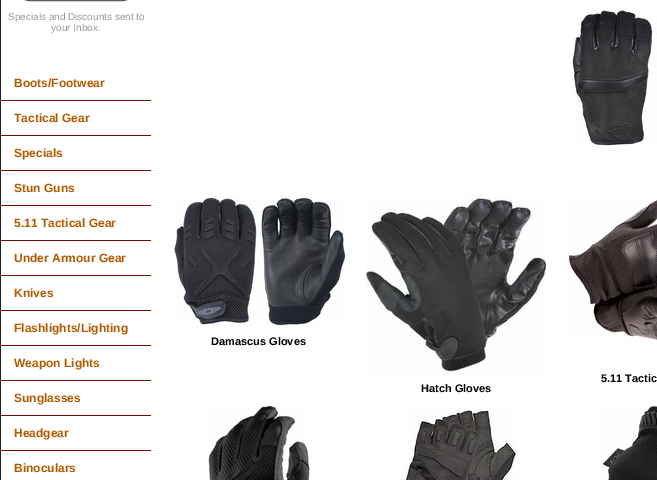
%!PS-Adobe-3.0
%%BoundingBox: 0 0 657 480
%%LanguageLevel: 3
%%Pages: 1
%%EndComments
%%BeginProlog
/S { stroke } bind def
/fn { [ exch dup neg 0 0 3 -1 roll 0 0 ] selectfont } def
/tx { moveto show } def
/bx { rectfill } def
/rr { 5 dict begin { /r /h /w /y /x } { exch def } forall
  x r add y moveto x w add y 2 copy h add r arct x w add y h add x 1 index r arct
  x y h add x y r arct x y 2 copy exch w add exch r arct closepath end } def
/im { 5 dict begin { /h /w /y /x /name } { exch def } forall
  gsave x y translate w h scale
  w h 8 [w 0 0 h 0 0] name (r) file false 3 colorimage grestore end } def
%%EndProlog
%%BeginSetup
<< /PageSize [657 480] >> setpagedevice
%%EndSetup
%%Page: 1 1
0 480 translate 1 -1 scale
4 setmiterlimit
0.125 setgray
0 0 657 480 bx
1 setgray
1 0 656 480 bx
0.357 setgray
19.5 -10.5 113 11 9.5 rr S
/LiberationSans-Regular 10 fn
0.6 setgray
(Specials and Discounts sent to) 8 20 tx
(your Inbox.) 51 31 tx
0.459 0.055 0 setrgbcolor
1 100 150 1 bx
/LiberationSans-Bold 12 fn
0.702 0.353 0 setrgbcolor
(Boots/Footwear) 14 87 tx
0.459 0.055 0 setrgbcolor
1 135 150 1 bx
0.702 0.353 0 setrgbcolor
(Tactical Gear) 14 122 tx
0.459 0.055 0 setrgbcolor
1 170 150 1 bx
0.702 0.353 0 setrgbcolor
(Specials) 14 157 tx
0.459 0.055 0 setrgbcolor
1 205 150 1 bx
0.702 0.353 0 setrgbcolor
(Stun Guns) 14 192 tx
0.459 0.055 0 setrgbcolor
1 240 150 1 bx
0.702 0.353 0 setrgbcolor
(5.11 Tactical Gear) 14 227 tx
0.459 0.055 0 setrgbcolor
1 275 150 1 bx
0.702 0.353 0 setrgbcolor
(Under Armour Gear) 14 262 tx
0.459 0.055 0 setrgbcolor
1 310 150 1 bx
0.702 0.353 0 setrgbcolor
(Knives) 14 297 tx
0.459 0.055 0 setrgbcolor
1 345 150 1 bx
0.702 0.353 0 setrgbcolor
(Flashlights/Lighting) 14 332 tx
0.459 0.055 0 setrgbcolor
1 380 150 1 bx
0.702 0.353 0 setrgbcolor
(Weapon Lights) 14 367 tx
0.459 0.055 0 setrgbcolor
1 415 150 1 bx
0.702 0.353 0 setrgbcolor
(Sunglasses) 14 402 tx
0.459 0.055 0 setrgbcolor
1 450 150 1 bx
0.702 0.353 0 setrgbcolor
(Headgear) 14 437 tx
(Binoculars) 14 472 tx
(image0.raw) 572 10 85 137 im
(image1.raw) 174 196 173 130 im
/LiberationSans-Bold 11 fn
0 setgray
(Damascus Gloves) 211 345 tx
(image2.raw) 568 198 89 144 im
(5.11 Tactic) 601 382 tx
(image3.raw) 366 195 180 180 im
(Hatch Gloves) 421 392 tx
(image4.raw) 208 406 102 74 im
(image5.raw) 404 408 114 72 im
(image6.raw) 601 406 56 74 im
showpage
%%EOF
